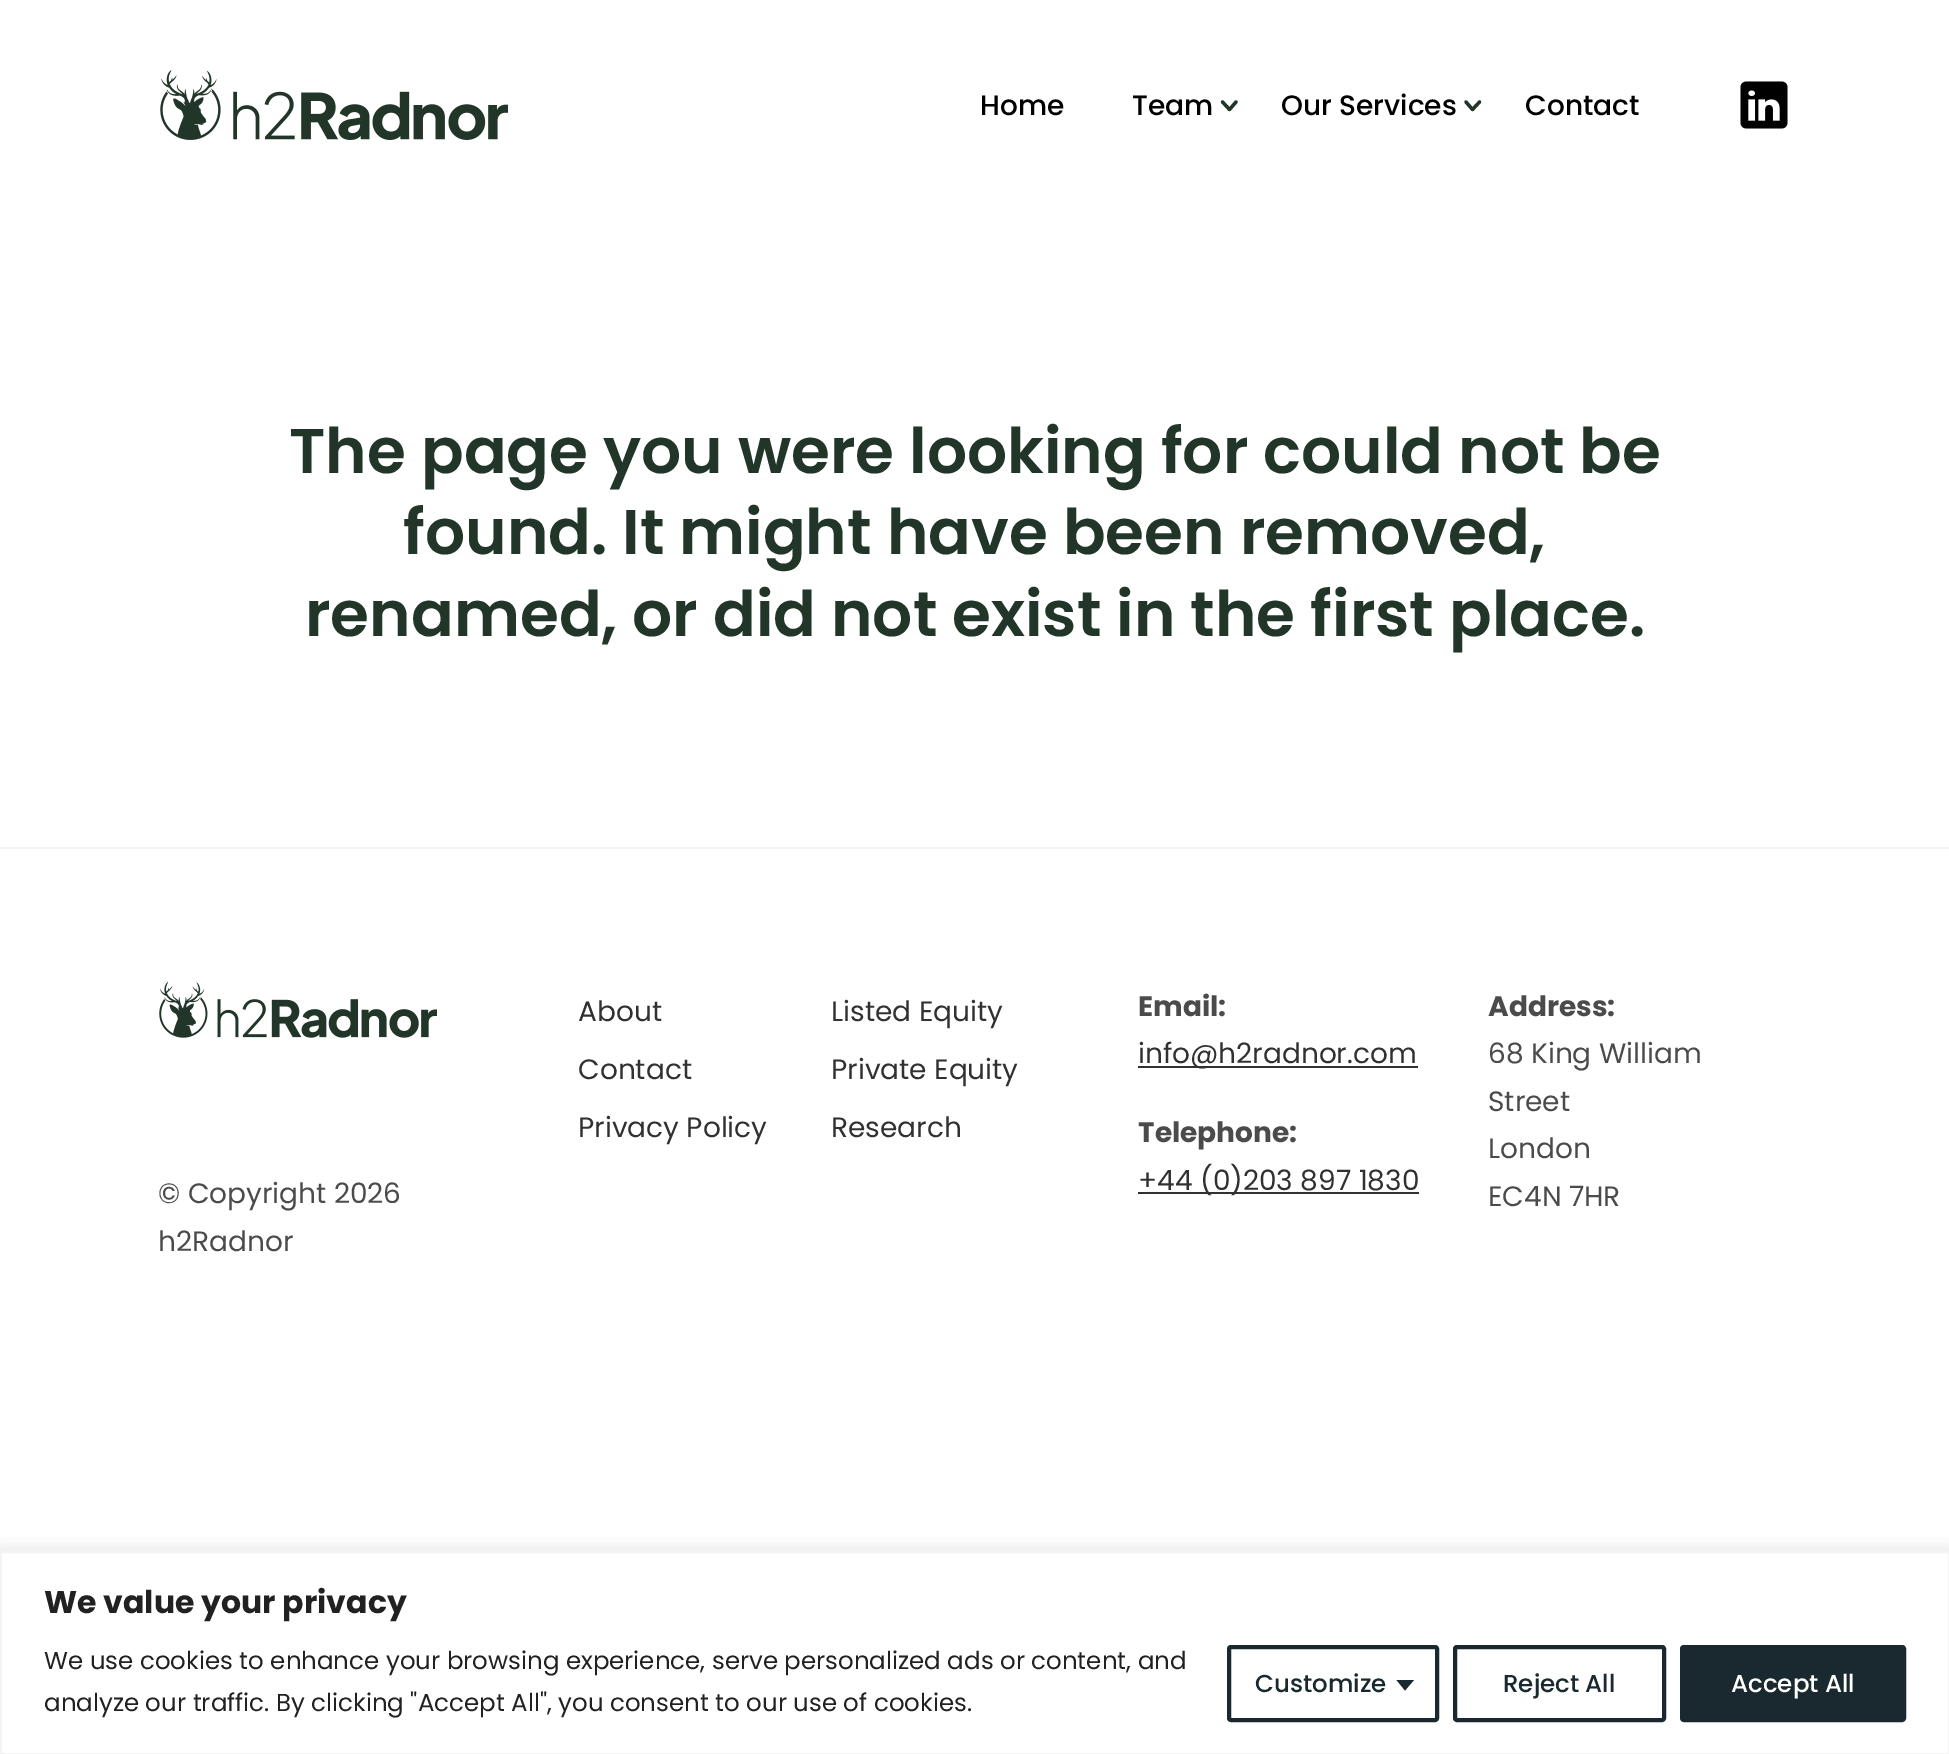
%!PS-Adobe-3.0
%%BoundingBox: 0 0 1949 1754
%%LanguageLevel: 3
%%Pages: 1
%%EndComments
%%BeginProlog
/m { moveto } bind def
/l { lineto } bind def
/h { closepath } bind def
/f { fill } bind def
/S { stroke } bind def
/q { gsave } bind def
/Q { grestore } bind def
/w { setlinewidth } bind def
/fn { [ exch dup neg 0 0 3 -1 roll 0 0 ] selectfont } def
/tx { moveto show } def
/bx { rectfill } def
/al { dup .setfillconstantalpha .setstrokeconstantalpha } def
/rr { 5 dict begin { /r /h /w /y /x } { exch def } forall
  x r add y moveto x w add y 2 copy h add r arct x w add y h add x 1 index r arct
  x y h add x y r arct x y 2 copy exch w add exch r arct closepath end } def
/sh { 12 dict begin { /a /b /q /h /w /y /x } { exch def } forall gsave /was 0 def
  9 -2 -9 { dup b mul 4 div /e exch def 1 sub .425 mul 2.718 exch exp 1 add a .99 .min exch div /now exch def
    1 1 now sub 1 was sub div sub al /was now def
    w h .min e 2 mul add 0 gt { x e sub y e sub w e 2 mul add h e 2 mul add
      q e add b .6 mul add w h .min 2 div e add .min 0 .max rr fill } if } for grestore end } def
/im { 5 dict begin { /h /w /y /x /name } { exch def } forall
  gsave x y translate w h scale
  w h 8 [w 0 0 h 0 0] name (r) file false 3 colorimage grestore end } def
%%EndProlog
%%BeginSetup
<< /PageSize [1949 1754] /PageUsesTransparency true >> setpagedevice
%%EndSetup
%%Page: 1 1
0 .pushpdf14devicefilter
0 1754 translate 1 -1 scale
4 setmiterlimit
1 setgray
0 0 1949 1754 bx
(image0.raw) 160 70 348 70 im
/Poppins-Medium 28 fn
0 setgray
(Home) 980 115 tx
0.129 0.212 0.161 setrgbcolor
3.3 w
1 setlinecap
1222.5 102 m 1229.5 109.5 l 1236 102 m 1229.5 109.5 l S
0 setgray
(Team) 1132 115 tx
0.129 0.212 0.161 setrgbcolor
1466 102 m 1472.5 109.5 l 1479.5 102 m 1472.5 109.5 l S
0 setgray
(Our Services) 1281 115 tx
(Contact) 1525 115 tx
(image1.raw) 1740 81 48 48 im
/Poppins-SemiBold 63 fn
0.129 0.212 0.161 setrgbcolor
(The page you were looking for could not be) 289 473 tx
(found. It might have been removed,) 403 554 tx
(renamed, or did not exist in the first place.) 305 636 tx
0.953 0.957 0.957 setrgbcolor
0 847 1949 2 bx
/Poppins-Regular 28 fn
0.192 setgray
(About) 578 1021 tx
(Listed Equity) 831 1021 tx
(Contact) 578 1079 tx
(Private Equity) 831 1079 tx
(Privacy Policy) 578 1137 tx
(Research) 831 1137 tx
/Poppins-Bold 28 fn
0.294 setgray
(Email:) 1138 1016 tx
0.192 setgray
1138 1066 280 2 bx
/Poppins-Regular 28 fn
(info@h2radnor.com) 1138 1063 tx
/Poppins-Bold 28 fn
0.294 setgray
(Telephone:) 1138 1142 tx
0.192 setgray
1138 1192 281 2 bx
/Poppins-Regular 28 fn
(+44 \(0\)203 897 1830) 1138 1190 tx
/Poppins-Bold 28 fn
0.294 setgray
(Address:) 1488 1016 tx
/Poppins-Regular 28 fn
(68 King William) 1488 1063 tx
(Street) 1488 1111 tx
(London) 1488 1158 tx
(EC4N 7HR) 1488 1206 tx
(image2.raw) 159 982 278 56 im
(© Copyright 2026) 158 1203 tx
(h2Radnor) 158 1251 tx
q
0 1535 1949 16 rectclip
0.675 0.671 0.671 setrgbcolor
0 1549 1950 205 0 9 0.3 sh
Q
0.957 setgray
2 w
0 setlinecap
1 1552 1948 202 rectstroke
/Poppins-Bold 31.5 fn
0.129 setgray
(We value your privacy) 44 1613 tx
/Poppins-Regular 24.5 fn
(We use cookies to enhance your browsing experience, serve personalized ads or content, and) 44 1669 tx
(analyze our traffic. By clicking "Accept All", you consent to our use of cookies.) 44 1711 tx
0.102 0.161 0.188 setrgbcolor
4 w
1229 1647 208 73 2 rr S
/Poppins-Medium 24.5 fn
(Customize) 1255 1692 tx
1396.5 1680 m 1414 1680 l 1405 1690.5 l h f
1455 1647 209 73 2 rr S
(Reject All) 1503 1692 tx
1682 1647 222 73 2 rr q f Q
S
1 setgray
(Accept All) 1731 1692 tx
.poppdf14devicefilter showpage
%%EOF
